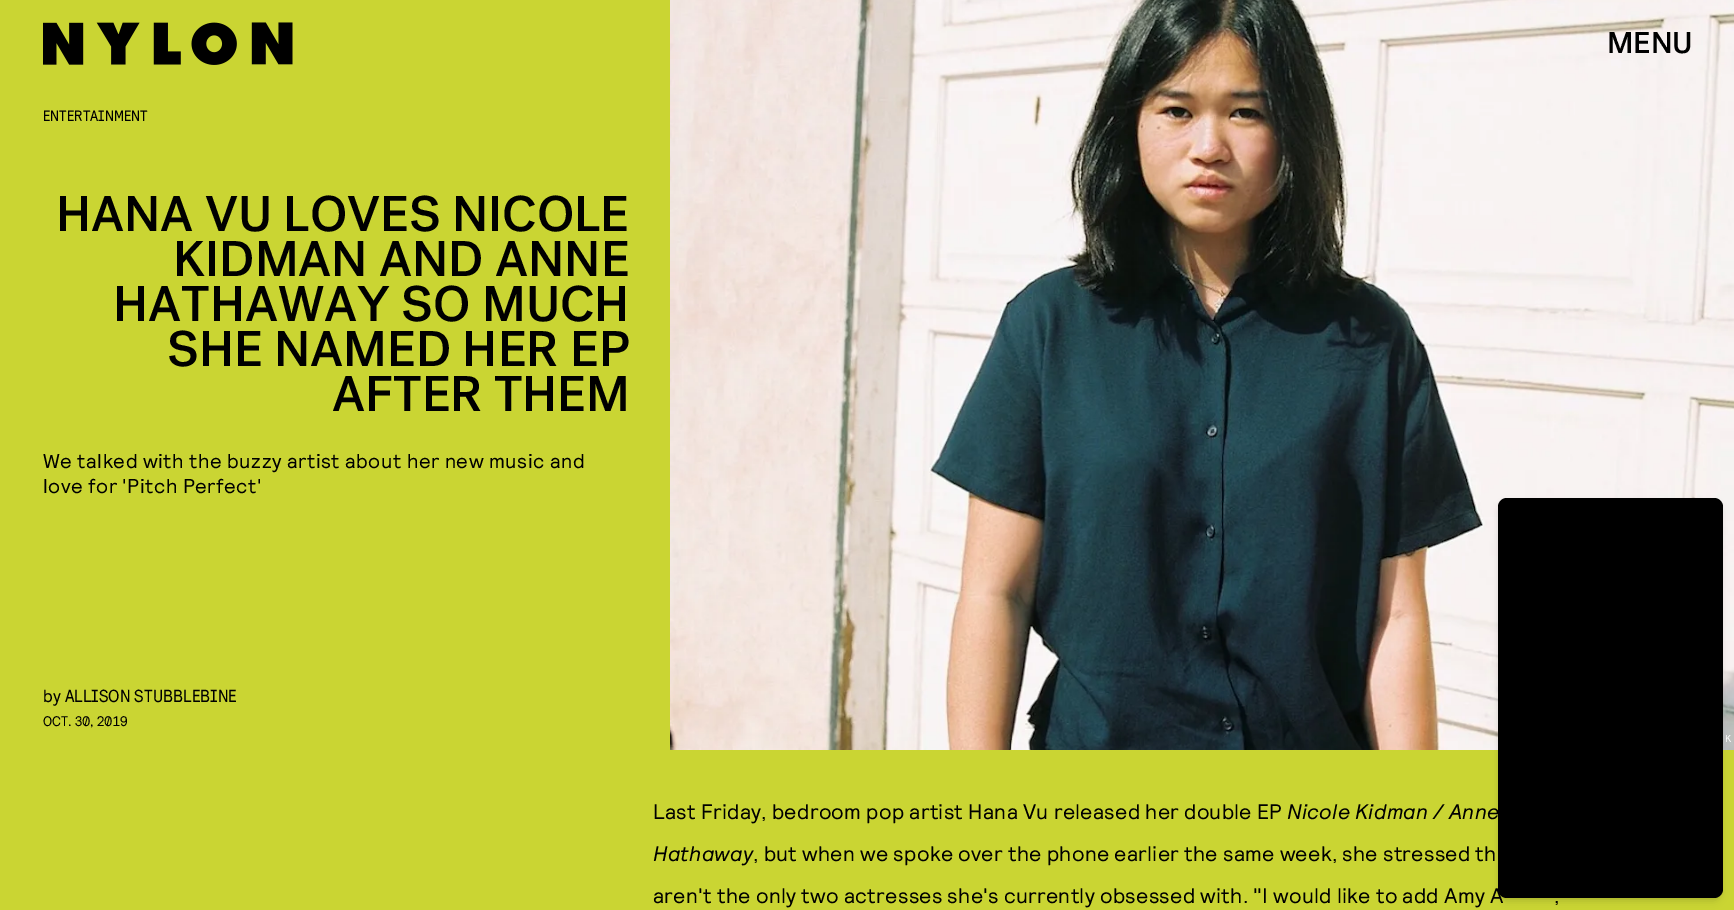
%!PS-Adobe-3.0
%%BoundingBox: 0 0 1734 910
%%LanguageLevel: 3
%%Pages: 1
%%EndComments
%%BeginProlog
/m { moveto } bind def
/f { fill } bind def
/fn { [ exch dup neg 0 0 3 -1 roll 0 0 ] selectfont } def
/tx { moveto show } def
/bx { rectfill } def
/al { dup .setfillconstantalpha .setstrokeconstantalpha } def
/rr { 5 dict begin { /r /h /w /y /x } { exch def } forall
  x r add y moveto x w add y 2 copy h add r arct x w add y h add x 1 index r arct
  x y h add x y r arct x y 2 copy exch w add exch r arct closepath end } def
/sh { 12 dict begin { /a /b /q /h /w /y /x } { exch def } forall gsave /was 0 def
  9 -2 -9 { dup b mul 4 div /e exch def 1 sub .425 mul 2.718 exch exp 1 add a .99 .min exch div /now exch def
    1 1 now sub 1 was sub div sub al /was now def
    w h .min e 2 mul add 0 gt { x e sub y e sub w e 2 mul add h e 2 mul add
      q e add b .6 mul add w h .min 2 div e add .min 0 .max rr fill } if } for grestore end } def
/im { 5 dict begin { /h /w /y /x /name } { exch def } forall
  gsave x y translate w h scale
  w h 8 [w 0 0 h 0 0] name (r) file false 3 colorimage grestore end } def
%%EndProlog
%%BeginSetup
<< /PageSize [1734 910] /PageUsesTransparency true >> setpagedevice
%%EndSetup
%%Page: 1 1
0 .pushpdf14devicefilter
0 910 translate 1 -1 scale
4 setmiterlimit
0.792 0.835 0.2 setrgbcolor
0 0 1734 910 bx
(image0.raw) 43 22 250 43 im
(image1.raw) 670 0 1064 750 im
/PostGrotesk-Medium 30 fn
0 setgray
(MENU) 1607 53 tx
/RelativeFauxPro-Regular 15 fn
(ENTERTAINMENT) 43 121 tx
/PostGrotesk-Medium 50 fn
(HANA VU LOVES NICOLE) 56 231 tx
(KIDMAN AND ANNE) 173 276 tx
(HATHAWAY SO MUCH) 113 321 tx
(SHE NAMED HER EP) 167 366 tx
(AFTER THEM) 332 411 tx
/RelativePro-Regular 20 fn
43 468 m 0.5 0 (We talked with the buzzy artist about her new music and) ashow
43 493 m 0.5 0 (love for 'Pitch Perfect') ashow
/RelativeFauxPro-Regular 17.5 fn
(by ALLISON STUBBLEBINE) 43 702 tx
/RelativeFauxPro-Regular 14 fn
(OCT. 30, 2019) 43 726 tx
/RelativePro-Regular 10 fn
1 setgray
(K) 1725 742 tx
/RelativePro-Regular 21 fn
0 setgray
653 819 m 0.25 0 (Last Friday, bedroom pop artist Hana Vu released her double EP) ashow
/RelativePro-Italic 21 fn
1287 819 m 0.25 0 (Nicole Kidman / Anne) ashow
653 861 m 0.25 0 (Hathaway) ashow
/RelativePro-Regular 21 fn
753 861 m 0.25 0 (, but when we spoke over the phone earlier the same week, she stressed th) ashow
653 903 m 0.25 0 (aren't the only two actresses she's currently obsessed with. "I would like to add Amy A) ashow
1554 903 m 0.25 0 (,) ashow
1500 503 220 395 6 2.5 0.1 sh
1499 504 222 397 8 4 0.1 sh
1498 498 225 400 9 rr f
.poppdf14devicefilter showpage
%%EOF
